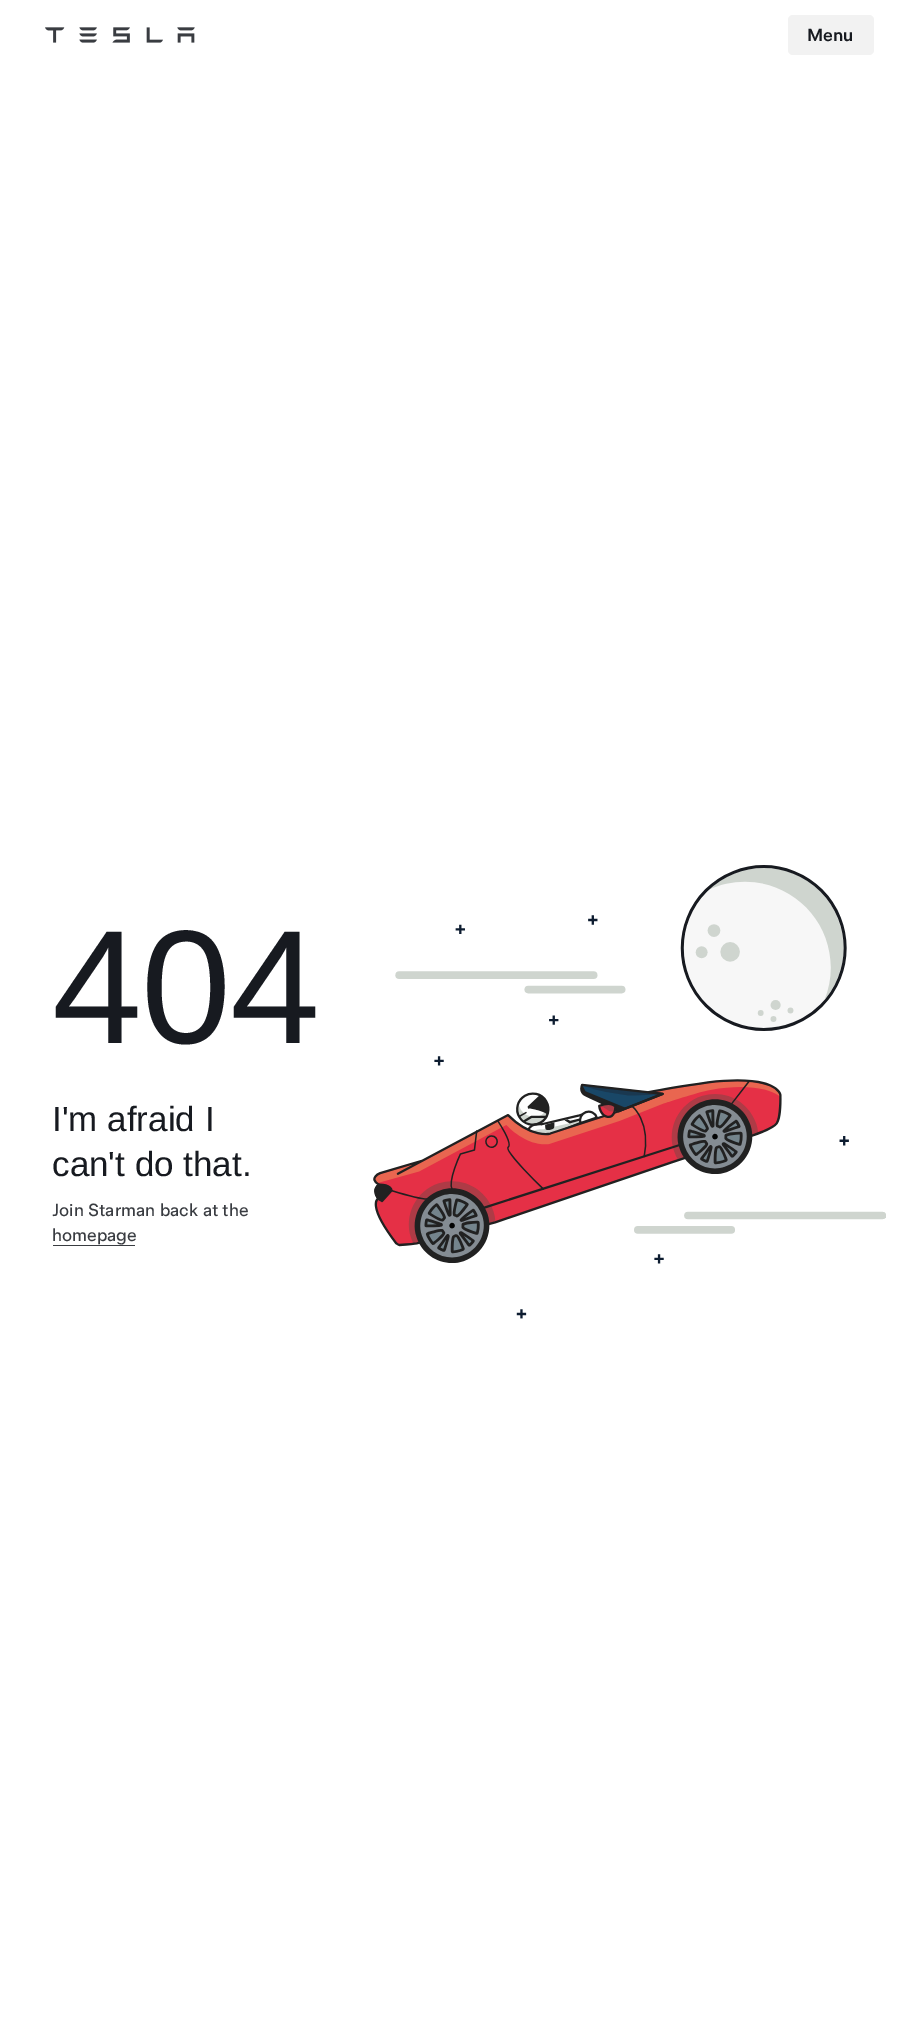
%!PS-Adobe-3.0
%%BoundingBox: 0 0 898 2038
%%LanguageLevel: 3
%%Pages: 1
%%EndComments
%%BeginProlog
/m { moveto } bind def
/f { fill } bind def
/fn { [ exch dup neg 0 0 3 -1 roll 0 0 ] selectfont } def
/tx { moveto show } def
/bx { rectfill } def
/rr { 5 dict begin { /r /h /w /y /x } { exch def } forall
  x r add y moveto x w add y 2 copy h add r arct x w add y h add x 1 index r arct
  x y h add x y r arct x y 2 copy exch w add exch r arct closepath end } def
/im { 5 dict begin { /h /w /y /x /name } { exch def } forall
  gsave x y translate w h scale
  w h 8 [w 0 0 h 0 0] name (r) file false 3 colorimage grestore end } def
%%EndProlog
%%BeginSetup
<< /PageSize [898 2038] >> setpagedevice
%%EndSetup
%%Page: 1 1
0 2038 translate 1 -1 scale
4 setmiterlimit
1 setgray
0 0 898 2038 bx
(image0.raw) 45 27 150 16 im
0.949 setgray
788 15 86 40 5 rr f
/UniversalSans-Medium 17.5 fn
0.09 0.102 0.125 setrgbcolor
(Menu) 807 41 tx
/LiberationSans-Regular 162 fn
52 1043 m -1 0 (404) ashow
/LiberationSans-Regular 35 fn
(I'm afraid I) 52 1131 tx
(can't do that.) 52 1176 tx
/UniversalSans-Regular 17.5 fn
0.224 0.235 0.255 setrgbcolor
(Join Starman back at the) 52 1216 tx
(homepage) 52 1241 tx
53 1245 82 1 bx
(image1.raw) 373 865 513 454 im
showpage
%%EOF
